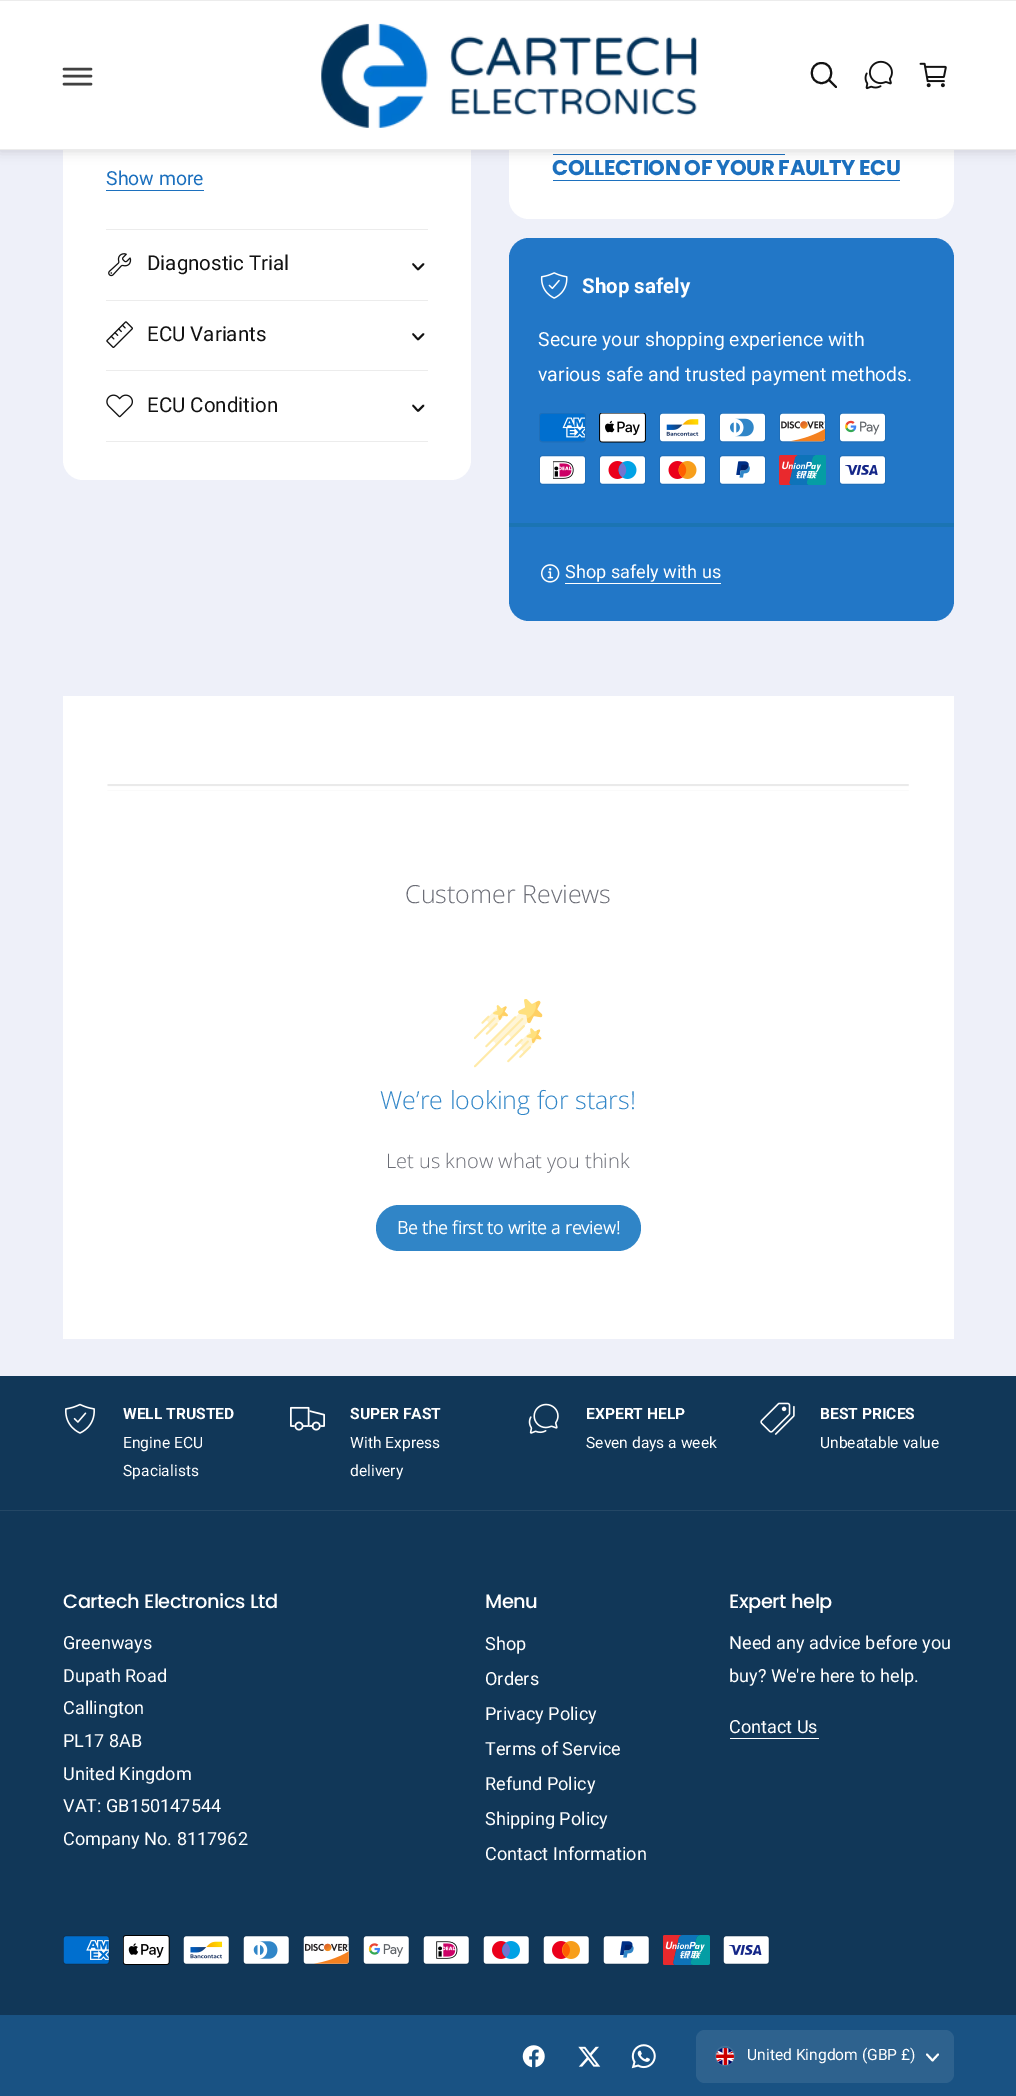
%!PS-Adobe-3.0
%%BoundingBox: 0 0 1016 2096
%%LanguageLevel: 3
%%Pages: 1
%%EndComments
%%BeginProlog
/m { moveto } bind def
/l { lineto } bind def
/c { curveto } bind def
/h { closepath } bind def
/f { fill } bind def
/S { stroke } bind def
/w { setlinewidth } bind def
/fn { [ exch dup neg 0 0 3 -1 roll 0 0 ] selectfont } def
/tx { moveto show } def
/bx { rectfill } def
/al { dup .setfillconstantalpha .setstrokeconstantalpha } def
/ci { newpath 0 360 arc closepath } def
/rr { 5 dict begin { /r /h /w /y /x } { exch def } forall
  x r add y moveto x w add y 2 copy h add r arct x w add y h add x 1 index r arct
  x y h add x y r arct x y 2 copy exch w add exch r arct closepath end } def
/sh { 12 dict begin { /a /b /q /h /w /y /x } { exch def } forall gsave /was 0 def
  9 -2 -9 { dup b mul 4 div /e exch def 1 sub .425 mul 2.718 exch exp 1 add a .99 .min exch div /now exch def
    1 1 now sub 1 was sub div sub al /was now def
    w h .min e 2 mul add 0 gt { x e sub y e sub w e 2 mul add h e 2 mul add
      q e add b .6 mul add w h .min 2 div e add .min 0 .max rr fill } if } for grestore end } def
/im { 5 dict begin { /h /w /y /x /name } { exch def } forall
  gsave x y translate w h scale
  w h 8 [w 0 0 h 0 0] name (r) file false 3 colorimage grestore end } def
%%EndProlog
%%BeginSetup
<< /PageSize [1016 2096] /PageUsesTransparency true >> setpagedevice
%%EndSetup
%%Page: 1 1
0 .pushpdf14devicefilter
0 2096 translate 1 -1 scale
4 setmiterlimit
0.933 0.941 0.976 setrgbcolor
0 0 1016 2096 bx
1 setgray
63 -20 408 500 20 rr f
509 -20 445 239 20 rr f
0.11 0.439 0.745 setrgbcolor
553 154 232 1 bx
0 setgray
0 1 1016 150 0 6 0.15 sh
1 setgray
0 1 1016 148 bx
0.925 setgray
0 0 1016 1 bx
0 149 1016 1 bx
0.255 setgray
2.5 w
1 setlinecap
64 69 m 91 69 l 64 76 m 91 76 l 64 84 m 91 84 l S
(image0.raw) 321 23 376 105 im
0.071 setgray
2 w
0 setlinecap
821.5 63 m 808.5 63 808.5 83 821.5 83 c 834.5 83 834.5 63 821.5 63 c h S
1 setlinecap
829 80 m 836 87 l S
(image1.raw) 864 60 29 30 im
(image2.raw) 919 62 28 26 im
/Roboto-Regular 19.4 fn
0.11 0.439 0.745 setrgbcolor
(Show more) 106 185 tx
106 190 98 1 bx
0.925 setgray
106 229 322 1 bx
106 300 322 1 bx
(image3.raw) 108 253 24 24 im
/Roboto-Regular 20.5 fn
0.071 setgray
(Diagnostic Trial) 147 270 tx
1.8 w
1 setlinejoin
413 264 m 418 269.5 l 423.5 264 l S
0.925 setgray
106 370 322 1 bx
(image4.raw) 106 321 27 27 im
0.071 setgray
(ECU Variants) 147 341 tx
413 334 m 418 339.5 l 423.5 334 l S
0.925 setgray
106 441 322 1 bx
(image5.raw) 106 394 27 24 im
0.071 setgray
(ECU Condition) 147 412 tx
413 405.5 m 418 411 l 423.5 405.5 l S
/Poppins-Bold 21.25 fn
0.11 0.439 0.745 setrgbcolor
552 175 m -0.4 0 (COLLECTION OF YOUR FAULTY ECU) ashow
553 180 347 1 bx
0.133 0.467 0.78 setrgbcolor
509 238 445 383 20 rr f
(image6.raw) 540 272 28 27 im
/Roboto-Bold 20.5 fn
1 setgray
(Shop safely) 582 293 tx
/Roboto-Regular 19.4 fn
(Secure your shopping experience with) 538 346 tx
(various safe and trusted payment methods.) 538 381 tx
(image7.raw) 539 413 47 30 im
(image8.raw) 599 413 47 30 im
(image9.raw) 659 413 47 30 im
(image10.raw) 719 413 47 30 im
(image11.raw) 779 413 47 30 im
(image12.raw) 839 413 47 30 im
(image13.raw) 539 455 47 30 im
(image14.raw) 599 455 47 30 im
(image15.raw) 659 455 47 30 im
(image16.raw) 719 455 47 30 im
(image17.raw) 779 455 47 30 im
(image18.raw) 839 455 47 30 im
0.106 0.455 0.702 setrgbcolor
509 523 445 4 bx
(image19.raw) 540 564 20 19 im
/Roboto-Regular 18.1 fn
1 setgray
(Shop safely with us) 565 578 tx
565 583 156 1 bx
63 696 891 643 bx
(image20.raw) 107 784 802 7 im
/OpenSans-Light 25 fn
0.42 0.427 0.463 setrgbcolor
(Customer Reviews) 405 903 tx
(image21.raw) 474 999 69 69 im
0.188 0.522 0.78 setrgbcolor
(We’re looking for stars!) 380 1109 tx
/OpenSans-Light 20 fn
0.42 0.427 0.463 setrgbcolor
(Let us know what you think) 386 1168 tx
0.188 0.522 0.78 setrgbcolor
376 1205 265 46 23 rr f
/OpenSans-Bold 17.5 fn
1 setgray
(Be the first to write a review!) 397 1234 tx
0.067 0.216 0.345 setrgbcolor
0 1376 1016 134 bx
0.141 0.278 0.396 setrgbcolor
0 1510 1016 1 bx
(image22.raw) 65 1403 30 31 im
/Roboto-Bold 15.6 fn
1 setgray
(WELL TRUSTED) 123 1419 tx
/Roboto-Regular 15.6 fn
(Engine ECU) 123 1448 tx
(Spacialists) 123 1476 tx
(image23.raw) 290 1406 35 25 im
/Roboto-Bold 15.6 fn
(SUPER FAST) 350 1419 tx
/Roboto-Regular 15.6 fn
(With Express) 350 1448 tx
(delivery) 350 1476 tx
(image24.raw) 528 1403 31 31 im
/Roboto-Bold 15.6 fn
(EXPERT HELP) 586 1419 tx
/Roboto-Regular 15.6 fn
(Seven days a week) 586 1448 tx
(image25.raw) 760 1402 35 33 im
/Roboto-Bold 15.6 fn
(BEST PRICES) 820 1419 tx
/Roboto-Regular 15.6 fn
(Unbeatable value) 820 1448 tx
0.067 0.216 0.345 setrgbcolor
0 1511 1016 504 bx
/Poppins-Medium 19.4 fn
1 setgray
63 1608 m -0.4 0 (Cartech Electronics Ltd) ashow
/Roboto-Regular 18.1 fn
(Greenways) 63 1649 tx
(Dupath Road) 63 1682 tx
(Callington) 63 1714 tx
(PL17 8AB) 63 1747 tx
(United Kingdom) 63 1780 tx
(VAT: GB150147544) 63 1812 tx
(Company No. 8117962) 63 1845 tx
/Poppins-Medium 19.4 fn
485 1608 m -0.4 0 (Menu) ashow
/Roboto-Regular 18.1 fn
(Shop) 485 1650 tx
(Orders) 485 1685 tx
(Privacy Policy) 485 1720 tx
(Terms of Service) 485 1755 tx
(Refund Policy) 485 1790 tx
(Shipping Policy) 485 1825 tx
(Contact Information) 485 1860 tx
/Poppins-Medium 19.4 fn
729 1608 m -0.4 0 (Expert help) ashow
/Roboto-Regular 18.1 fn
(Need any advice before you) 729 1649 tx
(buy? We're here to help.) 729 1682 tx
(Contact Us) 729 1733 tx
730 1738 89 1 bx
(image26.raw) 63 1935 47 30 im
(image27.raw) 123 1935 47 30 im
(image28.raw) 183 1935 47 30 im
(image29.raw) 243 1935 47 30 im
(image30.raw) 303 1935 47 30 im
(image31.raw) 363 1935 47 30 im
(image32.raw) 423 1935 47 30 im
(image33.raw) 483 1935 47 30 im
(image34.raw) 543 1935 47 30 im
(image35.raw) 603 1935 47 30 im
(image36.raw) 663 1935 47 30 im
(image37.raw) 723 1935 47 30 im
0.098 0.322 0.514 setrgbcolor
0 2015 1016 81 bx
(image38.raw) 522 2045 23 23 im
(image39.raw) 578 2046 23 21 im
(image40.raw) 631 2044 25 25 im
0.18 0.384 0.557 setrgbcolor
696 2030 258 53 9 rr f
0.263 0.447 0.6 setrgbcolor
1 w
0 setlinecap
0 setlinejoin
725 2056 9.5 ci S
(image41.raw) 716 2048 18 17 im
/Roboto-Regular 15.6 fn
1 setgray
(United Kingdom \(GBP £\)) 747 2060 tx
1.9 w
1 setlinecap
1 setlinejoin
927 2054.5 m 932.5 2060.5 l 938 2054.5 l S
.poppdf14devicefilter showpage
%%EOF
